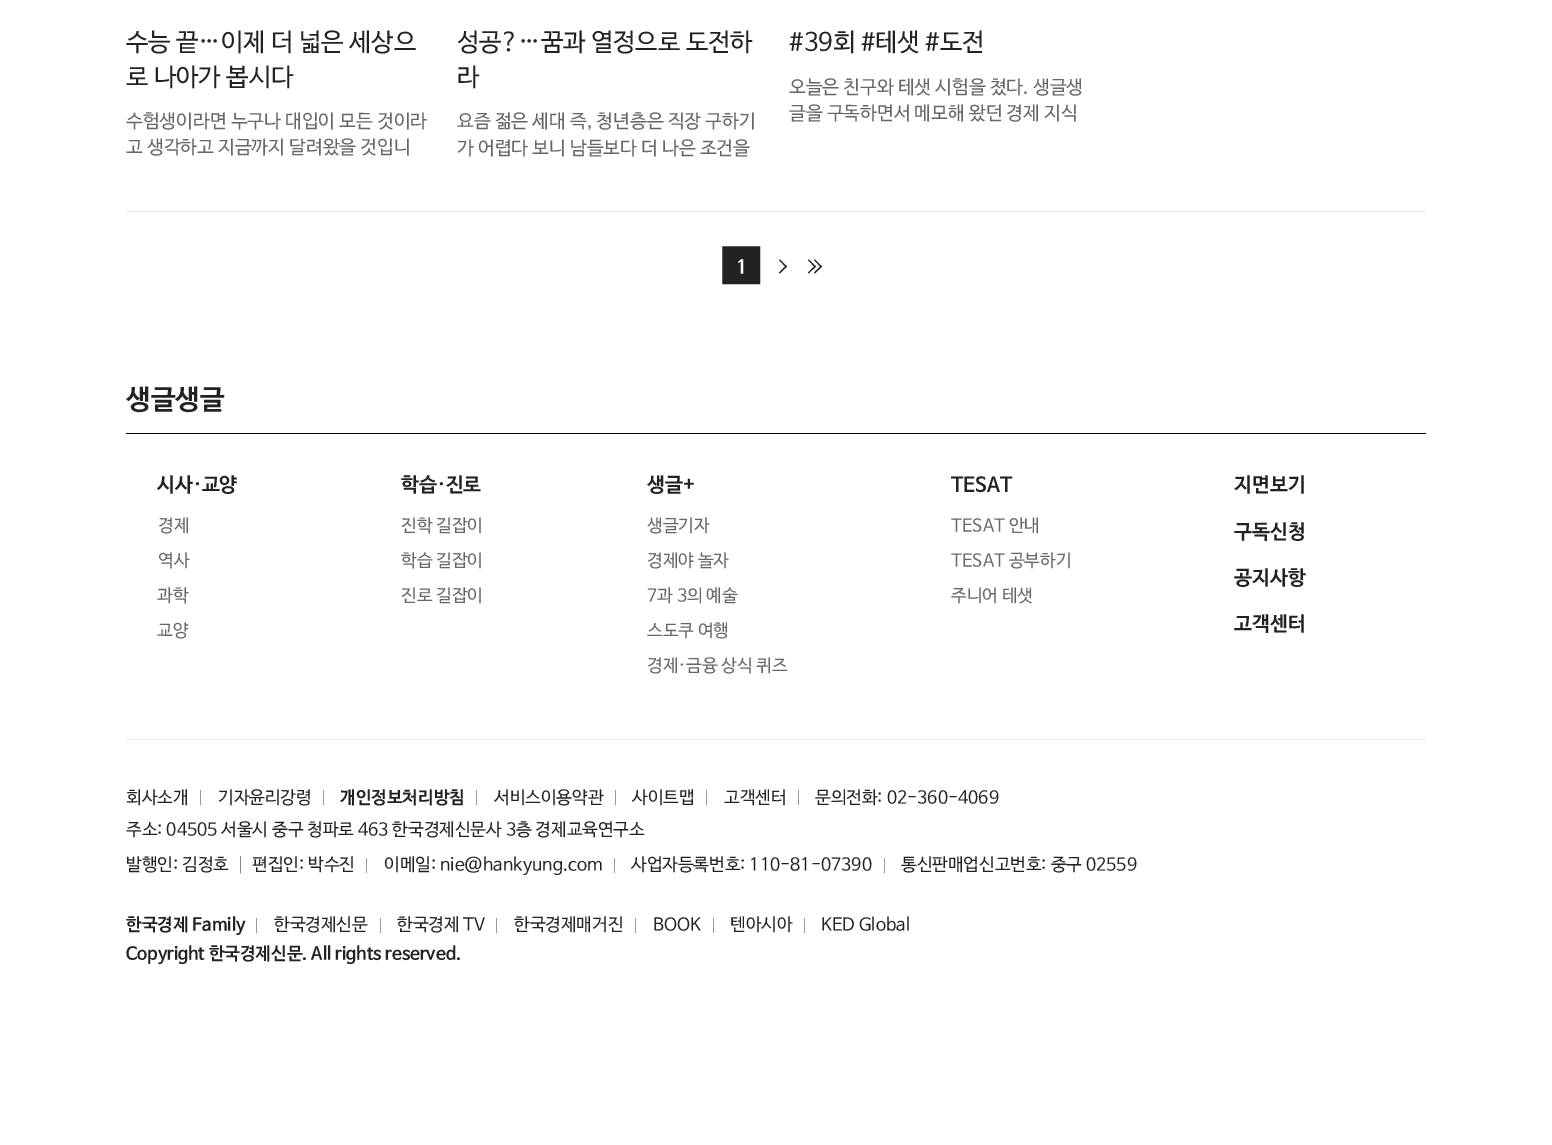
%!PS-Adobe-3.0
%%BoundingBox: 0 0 1552 1145
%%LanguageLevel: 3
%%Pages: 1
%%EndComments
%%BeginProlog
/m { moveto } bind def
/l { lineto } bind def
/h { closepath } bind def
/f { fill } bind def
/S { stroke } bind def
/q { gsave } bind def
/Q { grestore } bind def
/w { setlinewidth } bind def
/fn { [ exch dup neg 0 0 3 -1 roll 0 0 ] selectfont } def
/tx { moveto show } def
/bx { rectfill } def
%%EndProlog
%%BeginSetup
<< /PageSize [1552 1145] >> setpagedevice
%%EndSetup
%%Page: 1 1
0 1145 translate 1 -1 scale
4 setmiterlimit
1 setgray
0 0 1552 1145 bx
0.925 setgray
126 211 1300 1 bx
/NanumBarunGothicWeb-Regular 25 fn
0.133 setgray
q 126 50 translate 0.1 rotate 0 0 m (수능 끝…이제 더 넓은 세상으) show Q
q 126 85 translate 0.1 rotate 0 0 m (로 나아가 봅시다) show Q
/NanumBarunGothicWeb-Regular 18.75 fn
0.4 setgray
q 126 127 translate 0.1 rotate 0 0 m (수험생이라면 누구나 대입이 모든 것이라) show Q
q 126 153 translate 0.1 rotate 0 0 m (고 생각하고 지금까지 달려왔을 것입니) show Q
/NanumBarunGothicWeb-Regular 25 fn
0.133 setgray
q 457 50 translate 0.1 rotate 0 0 m (성공?…꿈과 열정으로 도전하) show Q
q 457 85 translate 0.1 rotate 0 0 m (라) show Q
/NanumBarunGothicWeb-Regular 18.75 fn
0.4 setgray
q 457 127 translate 0.1 rotate 0 0 m (요즘 젊은 세대 즉, 청년층은 직장 구하기) show Q
q 457 154 translate 0.1 rotate 0 0 m (가 어렵다 보니 남들보다 더 나은 조건을) show Q
/NanumBarunGothicWeb-Regular 25 fn
0.133 setgray
q 789 50 translate 0.1 rotate 0 0 m (#39회 #테샛 #도전) show Q
/NanumBarunGothicWeb-Regular 18.75 fn
0.4 setgray
q 789 93 translate 0.1 rotate 0 0 m (오늘은 친구와 테샛 시험을 쳤다. 생글생) show Q
q 789 119 translate 0.1 rotate 0 0 m (글을 구독하면서 메모해 왔던 경제 지식) show Q
0.133 setgray
723 247 36 36 bx
1.3 w
723 247 m 759.5 247 l 759.5 283.5 l 723 283.5 l h S
/NanumBarunGothicWeb-Bold 18.75 fn
1 setgray
(1) 736 273 tx
0.133 setgray
780 259.5 m 787 266.5 l 786 267.5 l 779 260 l h f
786 265.5 m 787 266.5 l 780 273.5 l 779 272.5 l h 815 259.5 m 822 266.5 l 821 267.5 l 814 260 l h f
821 265.5 m 822 266.5 l 815 273.5 l 814 272.5 l h f
809 259.5 m 816 266.5 l 815 267.5 l 808 260 l h f
815 265.5 m 816 266.5 l 808.5 273.5 l 808 272.5 l h f
/NanumBarunGothicWeb-Bold 27.5 fn
(생글생글) 126 408 tx
0 setgray
126 433 1300 1 bx
0.933 setgray
126 739 1300 1 bx
/NanumBarunGothicWeb-Bold 20 fn
0.133 setgray
(시사·교양) 157 491 tx
/NanumBarunGothicWeb-Regular 17.5 fn
0.4 setgray
q 158 531 translate 0.1 rotate 0 0 m (경제) show Q
q 158 566 translate 0.1 rotate 0 0 m (역사) show Q
q 157 601 translate 0.1 rotate 0 0 m (과학) show Q
q 157 636 translate 0.1 rotate 0 0 m (교양) show Q
/NanumBarunGothicWeb-Bold 20 fn
0.133 setgray
(학습·진로) 401 491 tx
/NanumBarunGothicWeb-Regular 17.5 fn
0.4 setgray
q 401 531 translate 0.1 rotate 0 0 m (진학 길잡이) show Q
q 401 566 translate 0.1 rotate 0 0 m (학습 길잡이) show Q
q 401 601 translate 0.1 rotate 0 0 m (진로 길잡이) show Q
/NanumBarunGothicWeb-Bold 20 fn
0.133 setgray
(생글+) 647 491 tx
/NanumBarunGothicWeb-Regular 17.5 fn
0.4 setgray
q 647 531 translate 0.1 rotate 0 0 m (생글기자) show Q
q 647 566 translate 0.1 rotate 0 0 m (경제야 놀자) show Q
q 647 601 translate 0.1 rotate 0 0 m (7과 3의 예술) show Q
q 647 636 translate 0.1 rotate 0 0 m (스도쿠 여행) show Q
q 647 671 translate 0.1 rotate 0 0 m (경제·금융 상식 퀴즈) show Q
/NanumBarunGothicWeb-Bold 20 fn
0.133 setgray
(TESAT) 951 491 tx
/NanumBarunGothicWeb-Regular 17.5 fn
0.4 setgray
q 951 531 translate 0.1 rotate 0 0 m (TESAT 안내) show Q
q 951 566 translate 0.1 rotate 0 0 m (TESAT 공부하기) show Q
q 951 601 translate 0.1 rotate 0 0 m (주니어 테샛) show Q
/NanumBarunGothicWeb-Bold 20 fn
0.133 setgray
(지면보기) 1234 491 tx
q 1234 538 translate 0.1 rotate 0 0 m (구독신청) show Q
q 1234 584 translate 0.1 rotate 0 0 m (공지사항) show Q
q 1234 630 translate 0.1 rotate 0 0 m (고객센터) show Q
/NanumBarunGothicWeb-Regular 17.5 fn
(회사소개) 126 803 tx
0.6 setgray
200 790 1 15 bx
0.133 setgray
(기자윤리강령) 218 803 tx
0.6 setgray
323 790 1 15 bx
/NanumBarunGothicWeb-Bold 17.5 fn
0.133 setgray
(개인정보처리방침) 340 803 tx
0.6 setgray
476 790 1 15 bx
/NanumBarunGothicWeb-Regular 17.5 fn
0.133 setgray
(서비스이용약관) 494 803 tx
0.6 setgray
615 790 1 15 bx
0.133 setgray
(사이트맵) 632 803 tx
0.6 setgray
706 790 1 15 bx
0.133 setgray
(고객센터) 724 803 tx
0.6 setgray
798 790 1 15 bx
0.133 setgray
(문의전화: 02-360-4069) 815 803 tx
(주소: 04505 서울시 중구 청파로 463 한국경제신문사 3층 경제교육연구소) 126 835 tx
(발행인: 김정호 │ 편집인: 박수진) 126 870 tx
0.6 setgray
366 858 1 15 bx
0.133 setgray
(이메일: nie@hankyung.com) 384 870 tx
0.6 setgray
614 858 1 15 bx
0.133 setgray
(사업자등록번호: 110-81-07390) 631 870 tx
0.6 setgray
884 858 1 15 bx
0.133 setgray
(통신판매업신고번호: 중구 02559) 901 870 tx
/NanumBarunGothicWeb-Bold 17.5 fn
(한국경제 Family) 126 930 tx
0.6 setgray
256 918 1 15 bx
/NanumBarunGothicWeb-Regular 17.5 fn
0.133 setgray
(한국경제신문) 274 930 tx
0.6 setgray
380 918 1 15 bx
0.133 setgray
(한국경제 TV) 397 930 tx
0.6 setgray
496 918 1 15 bx
0.133 setgray
(한국경제매거진) 514 930 tx
0.6 setgray
635 918 1 15 bx
0.133 setgray
(BOOK) 653 930 tx
0.6 setgray
713 918 1 15 bx
0.133 setgray
(텐아시아) 730 930 tx
0.6 setgray
804 918 1 15 bx
0.133 setgray
(KED Global) 821 930 tx
/NanumBarunGothicWeb-Bold 17.5 fn
(Copyright 한국경제신문. All rights reserved.) 126 959 tx
showpage
%%EOF
